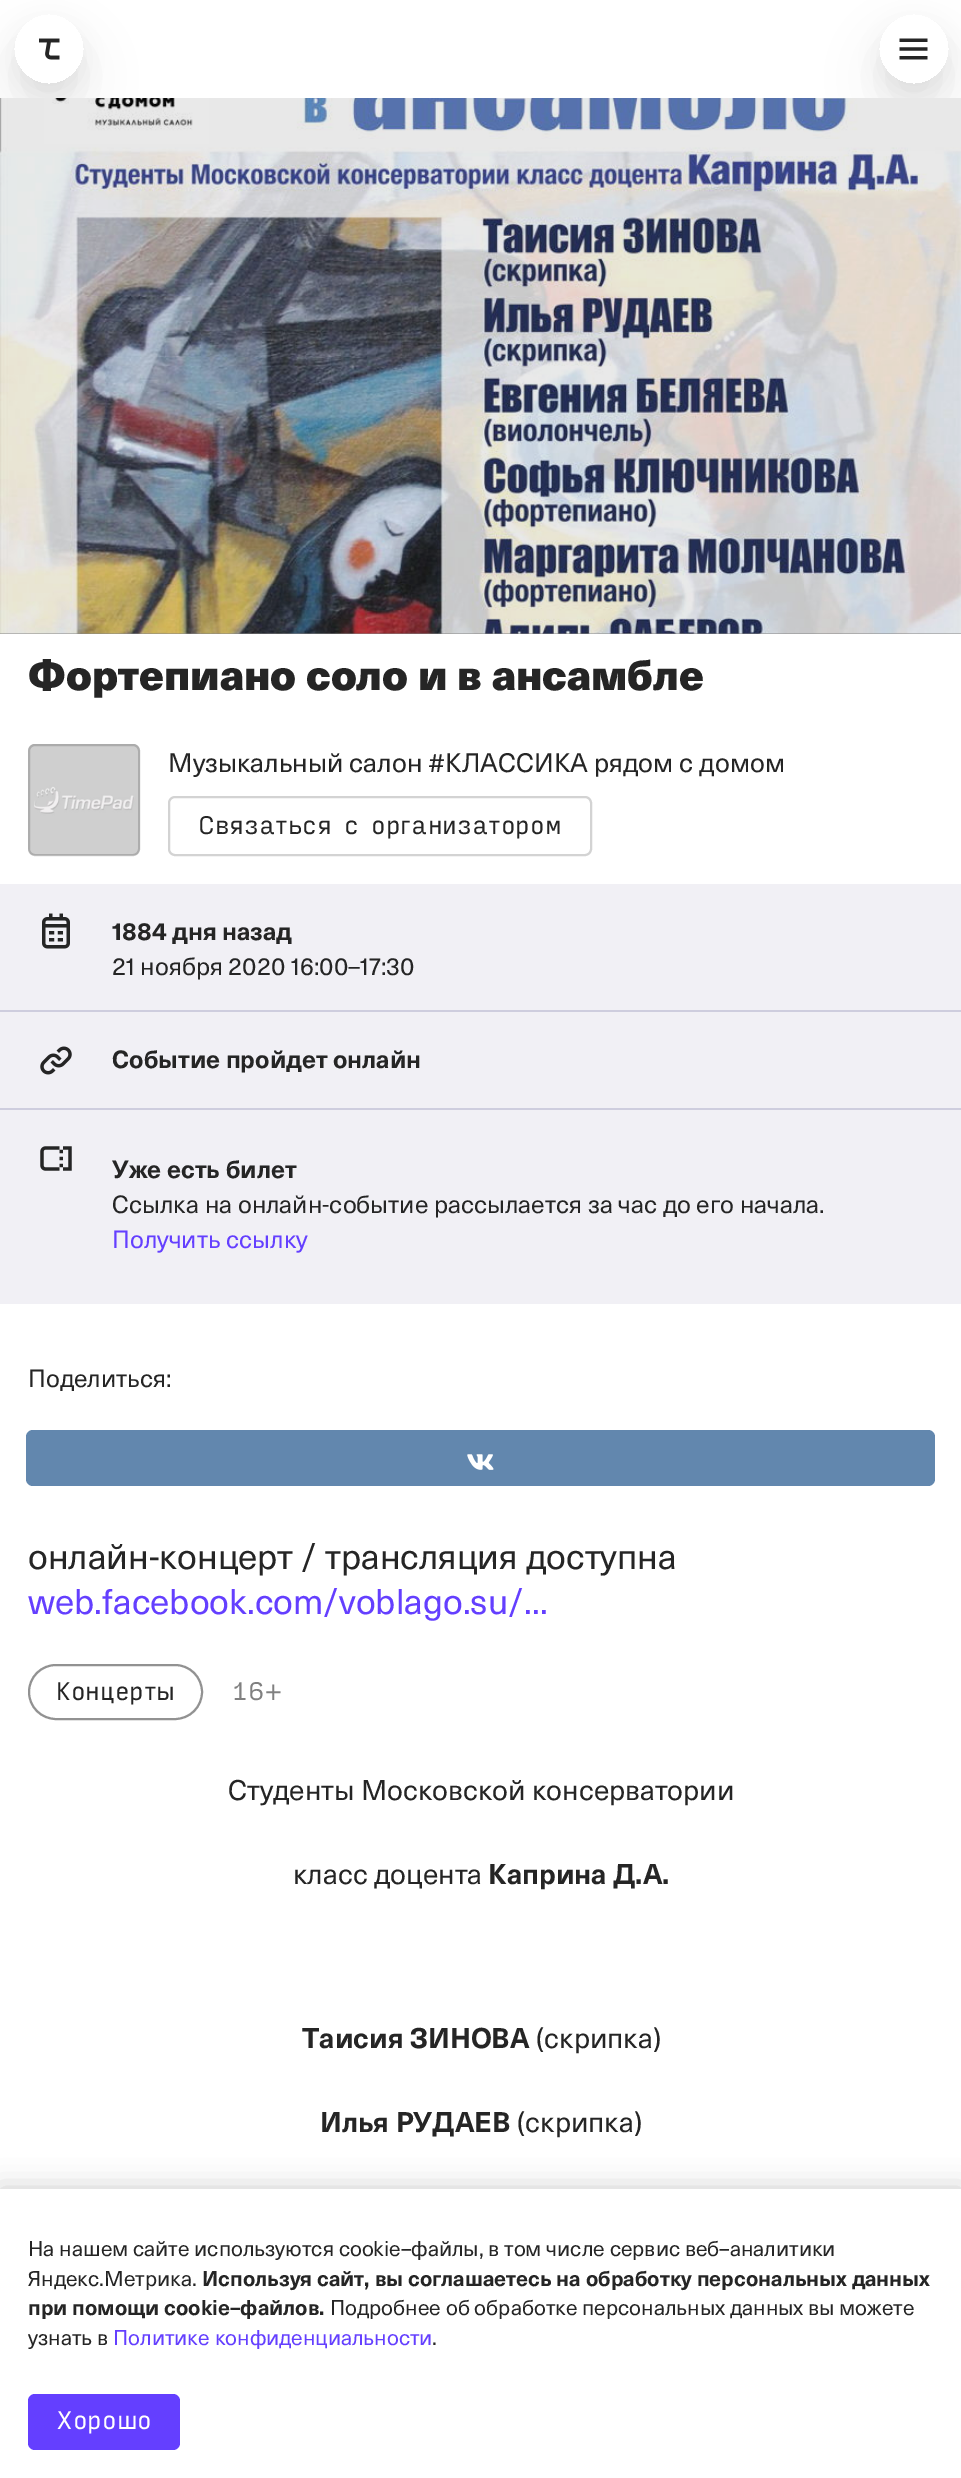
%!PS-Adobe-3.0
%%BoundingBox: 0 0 961 2478
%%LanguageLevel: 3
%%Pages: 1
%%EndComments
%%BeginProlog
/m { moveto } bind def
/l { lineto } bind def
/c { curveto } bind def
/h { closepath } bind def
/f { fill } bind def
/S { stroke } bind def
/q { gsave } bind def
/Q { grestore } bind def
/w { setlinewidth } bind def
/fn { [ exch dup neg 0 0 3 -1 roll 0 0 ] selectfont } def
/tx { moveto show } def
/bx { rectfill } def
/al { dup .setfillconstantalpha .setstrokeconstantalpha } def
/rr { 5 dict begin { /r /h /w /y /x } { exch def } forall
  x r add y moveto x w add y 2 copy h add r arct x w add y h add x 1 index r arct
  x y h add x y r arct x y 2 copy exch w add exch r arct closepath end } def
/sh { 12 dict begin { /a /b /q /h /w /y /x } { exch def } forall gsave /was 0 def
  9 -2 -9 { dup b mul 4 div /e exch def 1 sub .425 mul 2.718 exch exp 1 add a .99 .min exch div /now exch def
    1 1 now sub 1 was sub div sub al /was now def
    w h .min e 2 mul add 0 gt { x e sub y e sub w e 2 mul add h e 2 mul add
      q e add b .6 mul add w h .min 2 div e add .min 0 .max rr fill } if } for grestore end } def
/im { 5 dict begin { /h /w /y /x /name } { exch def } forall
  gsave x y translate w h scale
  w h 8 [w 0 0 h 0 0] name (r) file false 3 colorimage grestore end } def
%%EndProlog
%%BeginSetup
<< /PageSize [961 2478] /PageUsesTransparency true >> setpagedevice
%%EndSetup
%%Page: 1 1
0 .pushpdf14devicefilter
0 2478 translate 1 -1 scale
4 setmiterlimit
1 setgray
0 0 961 2478 bx
q
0 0 m 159 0 l 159 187 l 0 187 l h 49 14 m 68.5 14 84 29.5 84 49 c 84 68.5 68.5 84 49 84 c 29.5 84 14 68.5 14 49 c 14 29.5 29.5 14 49 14 c h eoclip newpath
0 setgray
14 42 70 70 35 24.5 0.07 sh
Q
q
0 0 m 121 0 l 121 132 l 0 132 l h 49 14 m 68.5 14 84 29.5 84 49 c 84 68.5 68.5 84 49 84 c 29.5 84 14 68.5 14 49 c 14 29.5 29.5 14 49 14 c h eoclip newpath
0 setgray
14 25 70 70 35 12 0.06 sh
Q
(image0.raw) 39 38 21 22 im
q
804 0 m 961 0 l 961 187 l 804 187 l h 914 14 m 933.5 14 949 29.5 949 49 c 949 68.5 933.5 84 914 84 c 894.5 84 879 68.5 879 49 c 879 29.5 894.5 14 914 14 c h eoclip newpath
0 setgray
879 42 70 70 35 24.5 0.07 sh
Q
q
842 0 m 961 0 l 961 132 l 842 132 l h 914 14 m 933.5 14 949 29.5 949 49 c 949 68.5 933.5 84 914 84 c 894.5 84 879 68.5 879 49 c 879 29.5 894.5 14 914 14 c h eoclip newpath
0 setgray
879 25 70 70 35 12 0.06 sh
Q
(image1.raw) 899 38 29 22 im
0.573 setgray
0 633 961 1 bx
(image2.raw) 0 98 961 536 im
0.1 al
0.145 setgray
0 98 961 536 bx
/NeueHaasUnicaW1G-Black 42 fn
1 al
(Фортепиано соло и в ансамбле) 28 690 tx
(image3.raw) 28 744 112 112 im
0.2 al
2 w
29 745 110 110 6 rr S
/NeueHaasUnicaW1G-Regular 26.25 fn
1 al
(Музыкальный салон #КЛАССИКА рядом с домом) 168 772 tx
0.827 setgray
169 797 422 58 6 rr S
/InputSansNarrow-Regular 24.5 fn
0.145 setgray
(Связаться с организатором) 198 834 tx
0.945 0.941 0.961 setrgbcolor
0 884 961 126 bx
(image4.raw) 42 913 28 36 im
/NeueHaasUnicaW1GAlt-Bold 24.5 fn
0.145 setgray
(1884 дня назад) 112 940 tx
/NeueHaasUnicaW1GAlt-Regular 24.5 fn
(21 ноября 2020 16:00–17:30) 112 975 tx
0.945 0.941 0.961 setrgbcolor
0 1012 961 96 bx
0.808 0.804 0.871 setrgbcolor
0 1010 961 2 bx
(image5.raw) 40 1046 32 29 im
/NeueHaasUnicaW1G-Bold 24.5 fn
0.145 setgray
(Событие пройдет онлайн) 112 1068 tx
0.945 0.941 0.961 setrgbcolor
0 1110 961 194 bx
0.808 0.804 0.871 setrgbcolor
0 1108 961 2 bx
(image6.raw) 40 1146 32 25 im
0.145 setgray
(Уже есть билет) 112 1178 tx
/NeueHaasUnicaW1G-Regular 24.5 fn
(Ссылка на онлайн-событие рассылается за час до его начала.) 112 1213 tx
0.392 0.247 1 setrgbcolor
(Получить ссылку) 112 1248 tx
0.145 setgray
(Поделиться:) 28 1387 tx
0.384 0.529 0.682 setrgbcolor
26 1430 909 56 7 rr f
(image7.raw) 467 1454 27 16 im
/NeueHaasUnicaW1G-Regular 35 fn
0.145 setgray
(онлайн-концерт / трансляция доступна) 28 1569 tx
0.392 0.247 1 setrgbcolor
(web.facebook.com/voblago.su/...) 28 1614 tx
0.573 setgray
29 1665 173 54 27 rr S
/InputSansNarrow-Regular 24.5 fn
0.145 setgray
(Концерты) 56 1700 tx
0.502 setgray
(16+) 231 1700 tx
/NeueHaasUnicaW1G-Regular 28 fn
0.145 setgray
(Студенты Московской консерватории) 228 1800 tx
(класс доцента) 293 1884 tx
/NeueHaasUnicaW1G-Bold 28 fn
(Каприна Д.А.) 488 1884 tx
(Таисия ЗИНОВА) 302 2048 tx
/NeueHaasUnicaW1G-Regular 28 fn
(\(скрипка\)) 536 2048 tx
/NeueHaasUnicaW1G-Bold 28 fn
(Илья РУДАЕВ) 320 2132 tx
/NeueHaasUnicaW1G-Regular 28 fn
(\(скрипка\)) 517 2132 tx
0 setgray
0 2189 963 289 0 14 0.2 sh
1 setgray
0 2189 961 289 bx
/NeueHaasUnicaW1G-Regular 21 fn
0.145 setgray
(На нашем сайте используются cookie–файлы, в том числе сервис веб–аналитики) 28 2256 tx
(Яндекс.Метрика.) 28 2286 tx
/NeueHaasUnicaW1G-Bold 21 fn
(Используя сайт, вы соглашаетесь на обработку персональных данных) 202 2286 tx
(при помощи cookie–файлов.) 28 2315 tx
/NeueHaasUnicaW1G-Regular 21 fn
(Подробнее об обработке персональных данных вы можете) 330 2315 tx
(узнать в) 28 2345 tx
0.392 0.247 1 setrgbcolor
(Политике конфиденциальности) 113 2345 tx
0.145 setgray
(.) 432 2345 tx
0.392 0.247 1 setrgbcolor
28 2394 152 56 7 rr f
/InputSansNarrow-Regular 24.5 fn
1 setgray
(Хорошо) 56 2429 tx
.poppdf14devicefilter showpage
%%EOF
